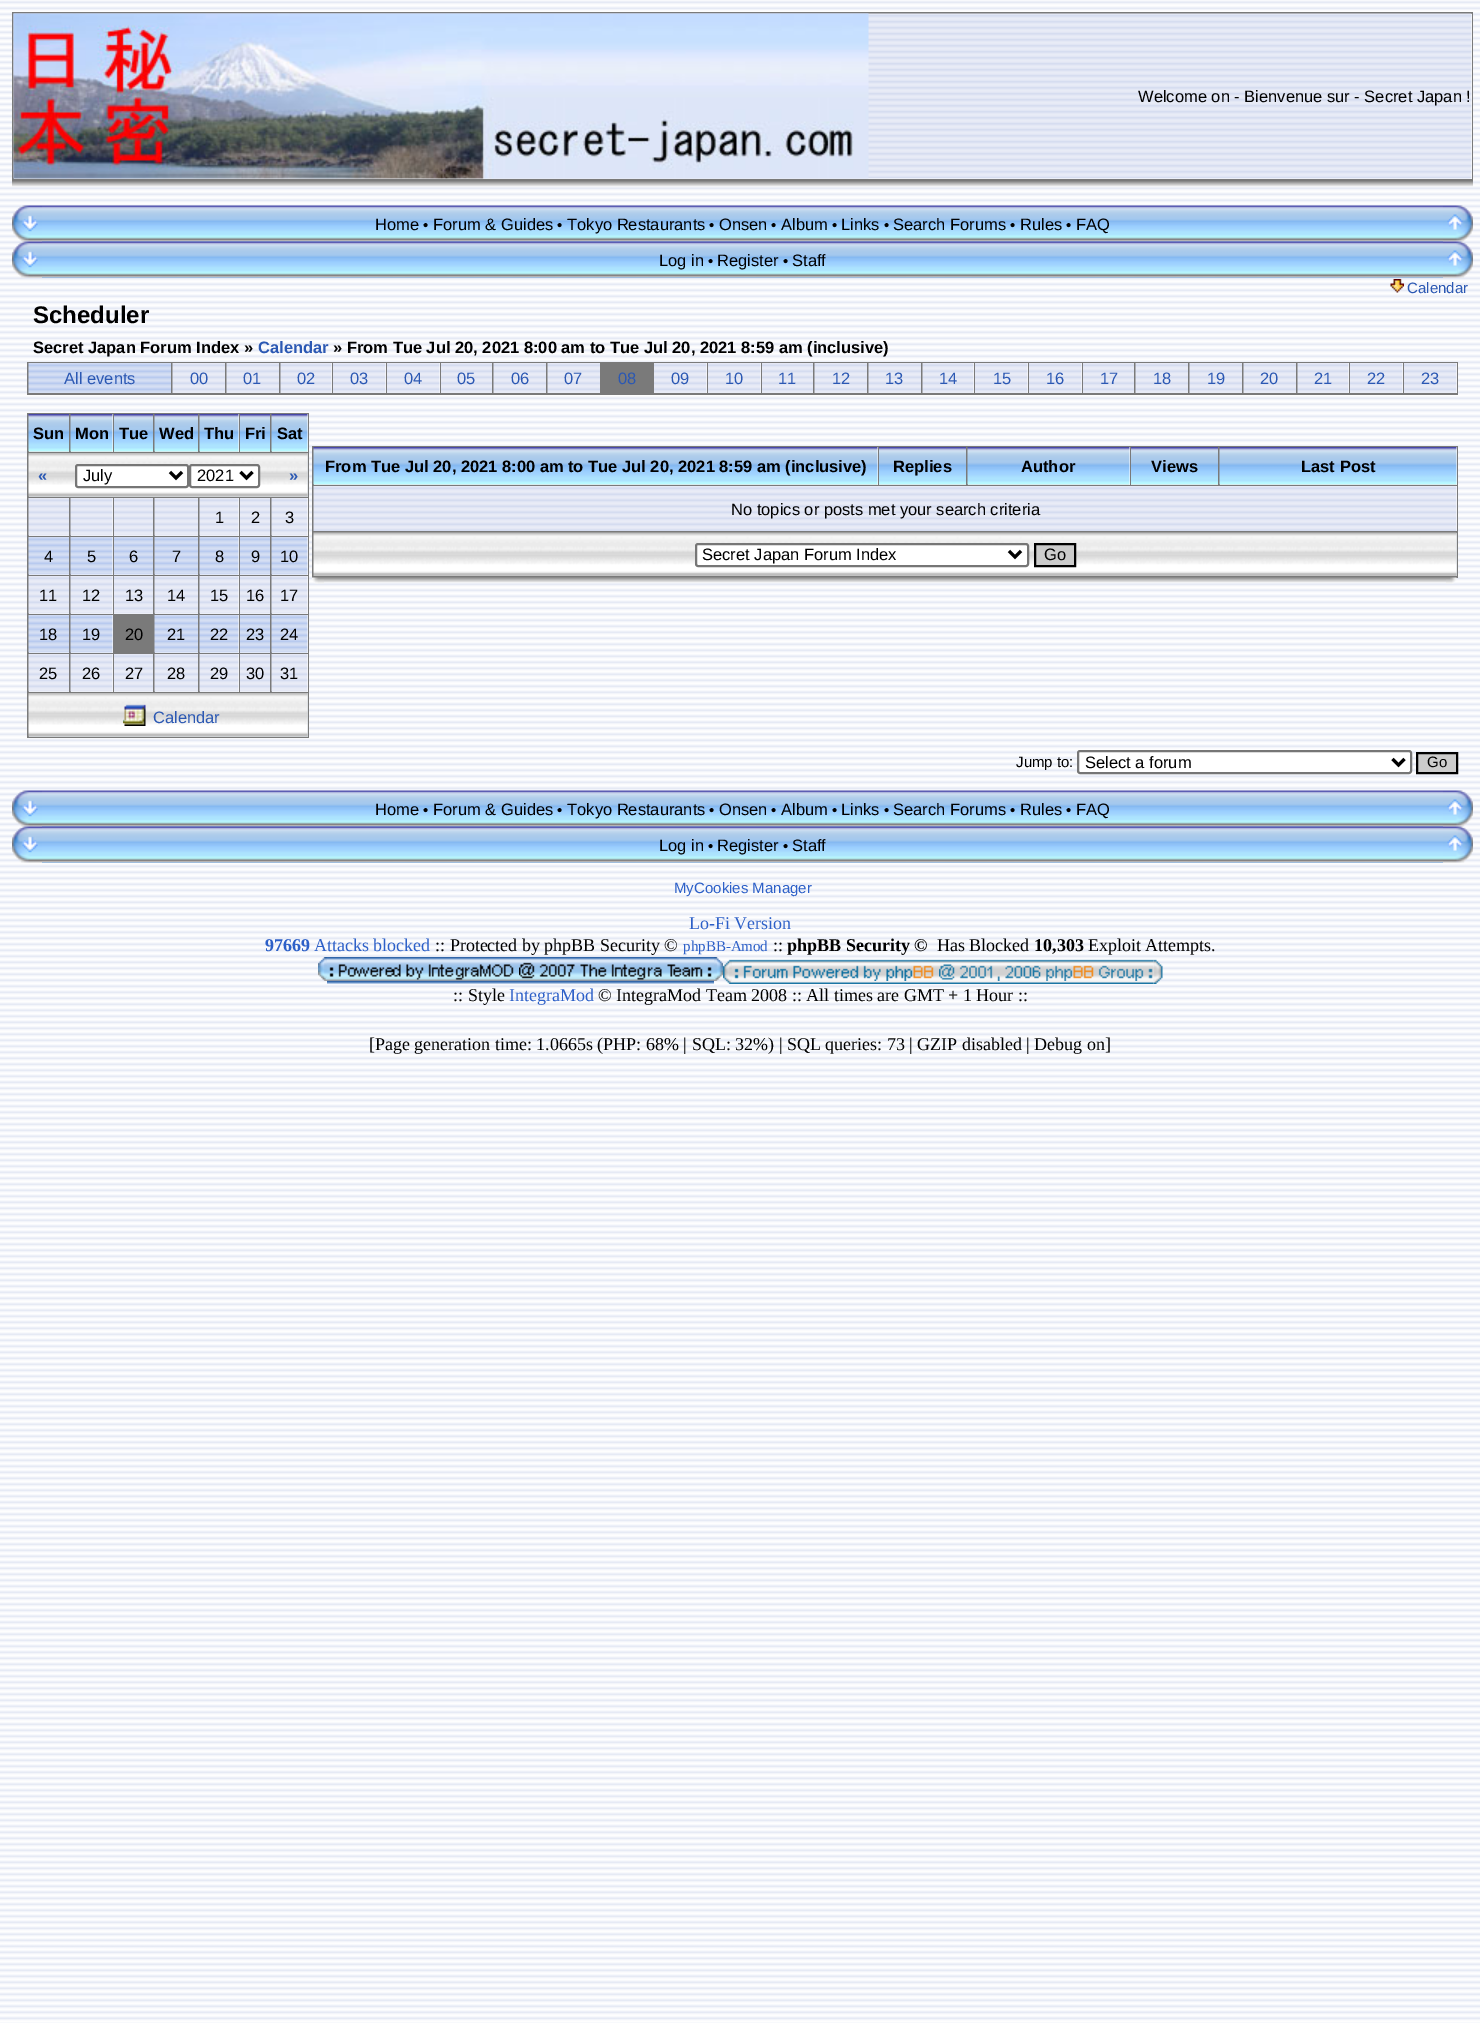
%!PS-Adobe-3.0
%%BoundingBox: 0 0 1480 2023
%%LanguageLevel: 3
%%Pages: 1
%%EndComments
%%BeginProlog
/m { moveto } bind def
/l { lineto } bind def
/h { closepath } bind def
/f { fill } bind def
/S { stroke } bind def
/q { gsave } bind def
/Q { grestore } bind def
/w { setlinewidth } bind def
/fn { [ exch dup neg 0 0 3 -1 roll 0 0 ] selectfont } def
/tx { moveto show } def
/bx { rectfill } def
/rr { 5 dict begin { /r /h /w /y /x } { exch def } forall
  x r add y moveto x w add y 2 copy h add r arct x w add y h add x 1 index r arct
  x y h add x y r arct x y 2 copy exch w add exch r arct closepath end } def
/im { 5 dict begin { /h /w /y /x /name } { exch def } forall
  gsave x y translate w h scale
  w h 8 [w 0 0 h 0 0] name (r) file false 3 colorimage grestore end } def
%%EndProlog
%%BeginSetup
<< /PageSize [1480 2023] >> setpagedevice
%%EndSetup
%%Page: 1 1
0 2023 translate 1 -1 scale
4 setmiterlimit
1 setgray
0 0 1480 2023 bx
(image0.raw) 0 0 1480 2023 im
0.478 setgray
12 12 1461 170 bx
1 setgray
14 14 1458 165 bx
(image1.raw) 13 13 1459 166 im
(image2.raw) 13 13 856 166 im
/LiberationSans-Regular 16.5 fn
0 setgray
(Welcome on - Bienvenue sur - Secret Japan !) 1138 102 tx
(image3.raw) 12 181 1461 6 im
(image4.raw) 12 205 30 37 im
(image5.raw) 42 205 1401 37 im
(Home) 375 230 tx
/LiberationSans-Regular 15 fn
(•) 423 230 tx
/LiberationSans-Regular 16.5 fn
(Forum & Guides) 433 230 tx
/LiberationSans-Regular 15 fn
(•) 557 230 tx
/LiberationSans-Regular 16.5 fn
(Tokyo Restaurants) 567 230 tx
/LiberationSans-Regular 15 fn
(•) 709 230 tx
/LiberationSans-Regular 16.5 fn
(Onsen) 719 230 tx
/LiberationSans-Regular 15 fn
(•) 771 230 tx
/LiberationSans-Regular 16.5 fn
(Album) 781 230 tx
/LiberationSans-Regular 15 fn
(•) 832 230 tx
/LiberationSans-Regular 16.5 fn
(Links) 841 230 tx
/LiberationSans-Regular 15 fn
(•) 884 230 tx
/LiberationSans-Regular 16.5 fn
(Search Forums) 893 230 tx
/LiberationSans-Regular 15 fn
(•) 1010 230 tx
/LiberationSans-Regular 16.5 fn
(Rules) 1020 230 tx
/LiberationSans-Regular 15 fn
(•) 1066 230 tx
/LiberationSans-Regular 16.5 fn
(FAQ) 1076 230 tx
(image6.raw) 1443 205 30 37 im
(image7.raw) 12 241 30 37 im
0.506 0.733 0.984 setrgbcolor
42 277 1401 1 bx
(image8.raw) 42 241 1401 37 im
0 setgray
(Log in) 659 266 tx
/LiberationSans-Regular 15 fn
(•) 708 266 tx
/LiberationSans-Regular 16.5 fn
(Register) 717 266 tx
/LiberationSans-Regular 15 fn
(•) 783 266 tx
/LiberationSans-Regular 16.5 fn
(Staff) 792 266 tx
(image9.raw) 1443 241 30 37 im
(image10.raw) 1390 279 14 14 im
/LiberationSans-Regular 15 fn
0.169 0.345 0.702 setrgbcolor
(Calendar) 1407 293 tx
/LiberationSans-Bold 24 fn
0 setgray
(Scheduler) 33 323 tx
/LiberationSans-Bold 16.5 fn
(Secret Japan Forum Index ») 33 353 tx
0.169 0.345 0.702 setrgbcolor
(Calendar) 258 353 tx
0 setgray
(» From Tue Jul 20, 2021 8:00 am to Tue Jul 20, 2021 8:59 am \(inclusive\)) 333 353 tx
0.478 setgray
27 362 1431 33 bx
(image11.raw) 28 363 143 30 im
/LiberationSans-Regular 16.5 fn
0.169 0.345 0.702 setrgbcolor
(All events) 64 384 tx
(image12.raw) 172 363 53 30 im
(00) 190 384 tx
(image12.raw) 226 363 53 30 im
(01) 243 384 tx
1 setgray
331 363 1 30 bx
(image13.raw) 280 363 52 30 im
0.169 0.345 0.702 setrgbcolor
(02) 297 384 tx
1 setgray
385 363 1 30 bx
(image14.raw) 333 363 53 30 im
0.169 0.345 0.702 setrgbcolor
(03) 350 384 tx
1 setgray
439 363 1 30 bx
(image14.raw) 387 363 53 30 im
0.169 0.345 0.702 setrgbcolor
(04) 404 384 tx
(image15.raw) 441 363 51 30 im
(05) 457 384 tx
(image12.raw) 493 363 53 30 im
(06) 511 384 tx
(image12.raw) 547 363 53 30 im
(07) 564 384 tx
(08) 618 384 tx
1 setgray
706 363 1 30 bx
(image14.raw) 654 363 53 30 im
0.169 0.345 0.702 setrgbcolor
(09) 671 384 tx
1 setgray
760 363 1 30 bx
(image14.raw) 708 363 53 30 im
0.169 0.345 0.702 setrgbcolor
(10) 725 384 tx
(image15.raw) 762 363 51 30 im
(11) 778 384 tx
(image12.raw) 814 363 53 30 im
(12) 832 384 tx
(image12.raw) 868 363 53 30 im
(13) 885 384 tx
1 setgray
973 363 1 30 bx
(image13.raw) 922 363 52 30 im
0.169 0.345 0.702 setrgbcolor
(14) 939 384 tx
1 setgray
1027 363 1 30 bx
(image14.raw) 975 363 53 30 im
0.169 0.345 0.702 setrgbcolor
(15) 993 384 tx
1 setgray
1081 363 1 30 bx
(image14.raw) 1029 363 53 30 im
0.169 0.345 0.702 setrgbcolor
(16) 1046 384 tx
(image15.raw) 1083 363 51 30 im
(17) 1100 384 tx
(image12.raw) 1135 363 53 30 im
(18) 1153 384 tx
(image12.raw) 1189 363 53 30 im
(19) 1207 384 tx
(image12.raw) 1243 363 53 30 im
(20) 1260 384 tx
1 setgray
1348 363 1 30 bx
(image13.raw) 1297 363 52 30 im
0.169 0.345 0.702 setrgbcolor
(21) 1314 384 tx
1 setgray
1402 363 1 30 bx
(image14.raw) 1350 363 53 30 im
0.169 0.345 0.702 setrgbcolor
(22) 1367 384 tx
1 setgray
1456 363 1 30 bx
(image14.raw) 1404 363 53 30 im
0.169 0.345 0.702 setrgbcolor
(23) 1421 384 tx
0.478 setgray
27 413 282 325 bx
1 setgray
29 451 40 1 bx
(image16.raw) 28 414 41 38 im
/LiberationSans-Bold 16.5 fn
0 setgray
(Sun) 33 439 tx
1 setgray
71 414 42 38 bx
(image17.raw) 70 414 43 38 im
0 setgray
(Mon) 75 439 tx
1 setgray
114 451 39 1 bx
(image18.raw) 114 414 39 38 im
0 setgray
(Tue) 119 439 tx
1 setgray
155 451 43 1 bx
(image19.raw) 154 414 44 38 im
0 setgray
(Wed) 159 439 tx
1 setgray
200 414 39 38 bx
(image20.raw) 199 414 40 38 im
0 setgray
(Thu) 204 439 tx
1 setgray
240 451 30 1 bx
(image21.raw) 240 414 30 38 im
0 setgray
(Fri) 245 439 tx
1 setgray
272 414 36 38 bx
(image22.raw) 271 414 37 38 im
0 setgray
(Sat) 277 439 tx
0.82 0.843 0.863 setrgbcolor
29 453 279 44 bx
(image23.raw) 28 453 280 44 im
0.169 0.345 0.702 setrgbcolor
(«) 38 481 tx
1 setgray
76 465 112 22 2 rr q f Q
0.463 setgray
2 w
S
0 setgray
3 w
170 472 m 176 478 l 182 472 l S
/LiberationSans-Regular 16.5 fn
(July) 83 481 tx
1 setgray
190 465 69 22 2 rr q f Q
0.463 setgray
2 w
S
0 setgray
3 w
240.5 472 m 246.5 478 l 252.5 472 l S
(2021) 197 481 tx
/LiberationSans-Bold 16.5 fn
0.169 0.345 0.702 setrgbcolor
(») 289 481 tx
1 setgray
29 535 40 1 bx
(image24.raw) 28 498 41 38 im
71 498 42 38 bx
(image25.raw) 70 498 43 38 im
114 535 39 1 bx
(image26.raw) 114 498 39 38 im
155 535 43 1 bx
(image27.raw) 154 498 44 38 im
200 498 39 38 bx
(image28.raw) 199 498 40 38 im
/LiberationSans-Regular 16.5 fn
0 setgray
(1) 215 523 tx
1 setgray
240 535 30 1 bx
(image29.raw) 240 498 30 38 im
0 setgray
(2) 251 523 tx
1 setgray
272 498 36 38 bx
(image30.raw) 271 498 37 38 im
0 setgray
(3) 285 523 tx
1 setgray
29 574 40 1 bx
(image31.raw) 28 537 41 38 im
0 setgray
(4) 44 562 tx
1 setgray
71 537 42 38 bx
(image32.raw) 70 537 43 38 im
0 setgray
(5) 87 562 tx
1 setgray
114 574 39 1 bx
(image33.raw) 114 537 39 38 im
0 setgray
(6) 129 562 tx
1 setgray
155 574 43 1 bx
(image34.raw) 154 537 44 38 im
0 setgray
(7) 172 562 tx
1 setgray
200 537 39 38 bx
(image35.raw) 199 537 40 38 im
0 setgray
(8) 215 562 tx
1 setgray
240 574 30 1 bx
(image36.raw) 240 537 30 38 im
0 setgray
(9) 251 562 tx
1 setgray
272 537 36 38 bx
(image37.raw) 271 537 37 38 im
0 setgray
(10) 280 562 tx
1 setgray
29 613 40 1 bx
(image24.raw) 28 576 41 38 im
0 setgray
(11) 39 601 tx
1 setgray
71 576 42 38 bx
(image25.raw) 70 576 43 38 im
0 setgray
(12) 82 601 tx
1 setgray
114 613 39 1 bx
(image26.raw) 114 576 39 38 im
0 setgray
(13) 125 601 tx
1 setgray
155 613 43 1 bx
(image27.raw) 154 576 44 38 im
0 setgray
(14) 167 601 tx
1 setgray
200 576 39 38 bx
(image28.raw) 199 576 40 38 im
0 setgray
(15) 210 601 tx
1 setgray
240 613 30 1 bx
(image29.raw) 240 576 30 38 im
0 setgray
(16) 246 601 tx
1 setgray
272 576 36 38 bx
(image30.raw) 271 576 37 38 im
0 setgray
(17) 280 601 tx
1 setgray
29 652 40 1 bx
(image31.raw) 28 615 41 38 im
0 setgray
(18) 39 640 tx
1 setgray
71 615 42 38 bx
(image32.raw) 70 615 43 38 im
0 setgray
(19) 82 640 tx
(20) 125 640 tx
1 setgray
155 652 43 1 bx
(image34.raw) 154 615 44 38 im
0 setgray
(21) 167 640 tx
1 setgray
200 615 39 38 bx
(image35.raw) 199 615 40 38 im
0 setgray
(22) 210 640 tx
1 setgray
240 652 30 1 bx
(image36.raw) 240 615 30 38 im
0 setgray
(23) 246 640 tx
1 setgray
272 615 36 38 bx
(image37.raw) 271 615 37 38 im
0 setgray
(24) 280 640 tx
1 setgray
29 691 40 1 bx
(image24.raw) 28 654 41 38 im
0 setgray
(25) 39 679 tx
1 setgray
71 654 42 38 bx
(image25.raw) 70 654 43 38 im
0 setgray
(26) 82 679 tx
1 setgray
114 691 39 1 bx
(image26.raw) 114 654 39 38 im
0 setgray
(27) 125 679 tx
1 setgray
155 691 43 1 bx
(image27.raw) 154 654 44 38 im
0 setgray
(28) 167 679 tx
1 setgray
200 654 39 38 bx
(image28.raw) 199 654 40 38 im
0 setgray
(29) 210 679 tx
1 setgray
240 691 30 1 bx
(image29.raw) 240 654 30 38 im
0 setgray
(30) 246 679 tx
1 setgray
272 654 36 38 bx
(image30.raw) 271 654 37 38 im
0 setgray
(31) 280 679 tx
0.82 0.843 0.863 setrgbcolor
29 693 279 44 bx
(image23.raw) 28 693 280 44 im
(image38.raw) 123 704 23 22 im
0.169 0.345 0.702 setrgbcolor
(Calendar) 153 723 tx
0.478 setgray
312 446 1146 132 bx
1 setgray
314 447 564 38 bx
(image39.raw) 313 447 565 38 im
/LiberationSans-Bold 16.5 fn
0 setgray
(From Tue Jul 20, 2021 8:00 am to Tue Jul 20, 2021 8:59 am \(inclusive\)) 325 472 tx
1 setgray
879 484 87 1 bx
(image40.raw) 879 447 87 38 im
0 setgray
(Replies) 893 472 tx
1 setgray
968 447 162 38 bx
(image41.raw) 967 447 163 38 im
0 setgray
(Author) 1021 472 tx
1 setgray
1131 484 87 1 bx
(image42.raw) 1131 447 87 38 im
0 setgray
(Views) 1151 472 tx
1 setgray
1220 447 237 38 bx
(image43.raw) 1219 447 238 38 im
0 setgray
(Last Post) 1301 472 tx
1 setgray
1456 486 1 45 bx
(image44.raw) 313 486 1144 45 im
/LiberationSans-Regular 16.5 fn
0 setgray
(No topics or posts met your search criteria) 731 515 tx
0.82 0.843 0.863 setrgbcolor
1456 533 1 43 bx
(image45.raw) 313 532 1144 44 im
1 setgray
696 544 332 22 2 rr q f Q
0.463 setgray
2 w
S
0 setgray
3 w
1009 551 m 1015 557 l 1021 551 l S
(Secret Japan Forum Index) 702 560 tx
0.8 setgray
1035 544 m 1075 544 l 1075 566 l 1035 566 l h q f Q
0 setgray
2 w
S
(Go) 1044 560 tx
(image46.raw) 312 577 12 7 im
(image47.raw) 324 577 1122 6 im
(image48.raw) 1446 577 11 7 im
/LiberationSans-Regular 15 fn
(Jump to:) 1016 767 tx
1 setgray
1078 751 333 22 2 rr q f Q
0.463 setgray
S
0 setgray
3 w
1392.5 759 m 1398.5 765 l 1404.5 759 l S
/LiberationSans-Regular 16.5 fn
(Select a forum) 1085 768 tx
0.8 setgray
1417 753 m 1457 753 l 1457 773 l 1417 773 l h q f Q
0 setgray
2 w
S
/LiberationSans-Regular 15 fn
(Go) 1427 767 tx
(image49.raw) 12 790 30 37 im
(image50.raw) 42 790 1401 37 im
/LiberationSans-Regular 16.5 fn
(Home) 375 815 tx
/LiberationSans-Regular 15 fn
(•) 423 815 tx
/LiberationSans-Regular 16.5 fn
(Forum & Guides) 433 815 tx
/LiberationSans-Regular 15 fn
(•) 557 815 tx
/LiberationSans-Regular 16.5 fn
(Tokyo Restaurants) 567 815 tx
/LiberationSans-Regular 15 fn
(•) 709 815 tx
/LiberationSans-Regular 16.5 fn
(Onsen) 719 815 tx
/LiberationSans-Regular 15 fn
(•) 771 815 tx
/LiberationSans-Regular 16.5 fn
(Album) 781 815 tx
/LiberationSans-Regular 15 fn
(•) 832 815 tx
/LiberationSans-Regular 16.5 fn
(Links) 841 815 tx
/LiberationSans-Regular 15 fn
(•) 884 815 tx
/LiberationSans-Regular 16.5 fn
(Search Forums) 893 815 tx
/LiberationSans-Regular 15 fn
(•) 1010 815 tx
/LiberationSans-Regular 16.5 fn
(Rules) 1020 815 tx
/LiberationSans-Regular 15 fn
(•) 1066 815 tx
/LiberationSans-Regular 16.5 fn
(FAQ) 1076 815 tx
(image51.raw) 1443 790 30 37 im
(image52.raw) 12 826 30 37 im
0.506 0.733 0.984 setrgbcolor
42 862 1401 1 bx
(image53.raw) 42 826 1401 37 im
0 setgray
(Log in) 659 851 tx
/LiberationSans-Regular 15 fn
(•) 708 851 tx
/LiberationSans-Regular 16.5 fn
(Register) 717 851 tx
/LiberationSans-Regular 15 fn
(•) 783 851 tx
/LiberationSans-Regular 16.5 fn
(Staff) 792 851 tx
(image54.raw) 1443 826 30 37 im
/LiberationSans-Regular 15 fn
0.176 0.376 0.784 setrgbcolor
(MyCookies Manager) 674 893 tx
/LiberationSerif-Regular 18 fn
(Lo-Fi Version) 689 929 tx
/LiberationSerif-Bold 18 fn
(97669) 265 951 tx
/LiberationSerif-Regular 18 fn
(Attacks blocked) 314 951 tx
0 setgray
(:: Protected by phpBB Security ©) 435 951 tx
/LiberationSerif-Regular 15 fn
0.176 0.376 0.784 setrgbcolor
(phpBB-Amod) 683 951 tx
/LiberationSerif-Regular 18 fn
0 setgray
(::) 773 951 tx
/LiberationSerif-Bold 18 fn
(phpBB Security ©) 787 951 tx
/LiberationSerif-Regular 18 fn
(Has Blocked) 937 951 tx
/LiberationSerif-Bold 18 fn
(10,303) 1034 951 tx
/LiberationSerif-Regular 18 fn
(Exploit Attempts.) 1088 951 tx
(image55.raw) 318 957 9 24 im
(image56.raw) 327 957 387 27 im
(image57.raw) 329 964 185 16 im
(image58.raw) 519 962 193 18 im
(image59.raw) 714 957 9 24 im
(image60.raw) 723 959 9 25 im
(image61.raw) 732 959 422 25 im
(image62.raw) 734 965 200 16 im
(image63.raw) 939 964 214 17 im
(image64.raw) 1153 959 10 25 im
(:: Style) 453 1001 tx
0.176 0.376 0.784 setrgbcolor
(IntegraMod) 509 1001 tx
0 setgray
(© IntegraMod Team 2008 :: All times are GMT + 1 Hour ::) 598 1001 tx
([Page generation time: 1.0665s \(PHP: 68% | SQL: 32%\) | SQL queries: 73 | GZIP disabled | Debug on]) 369 1050 tx
showpage
%%EOF
